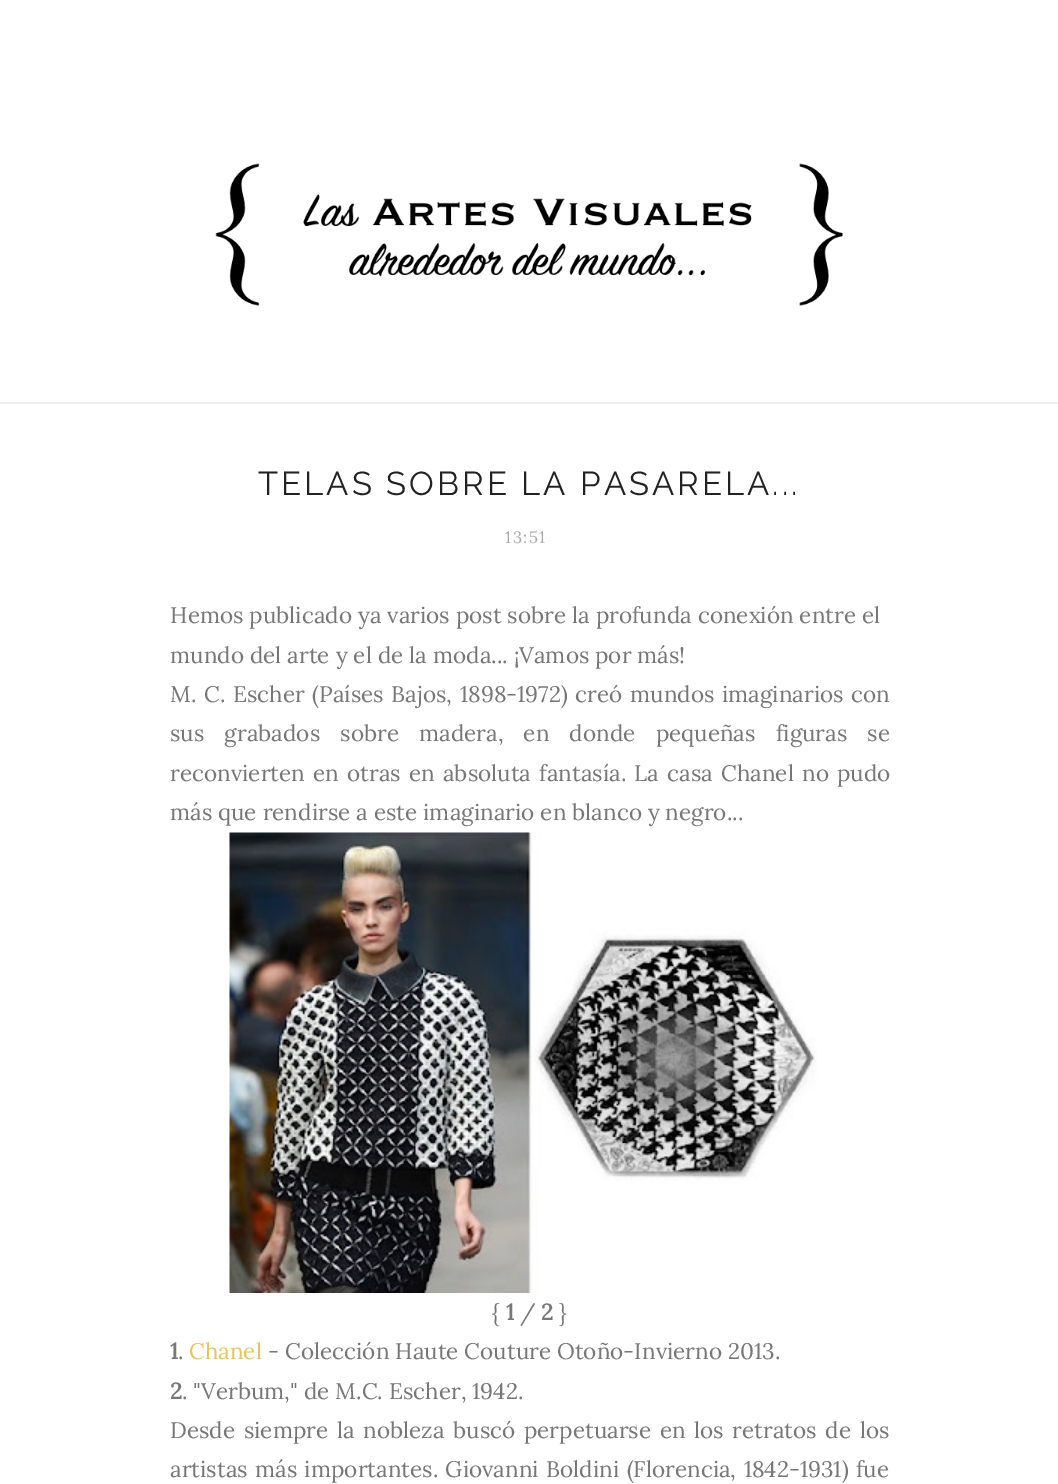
%!PS-Adobe-3.0
%%BoundingBox: 0 0 1058 1484
%%LanguageLevel: 3
%%Pages: 1
%%EndComments
%%BeginProlog
/m { moveto } bind def
/fn { [ exch dup neg 0 0 3 -1 roll 0 0 ] selectfont } def
/tx { moveto show } def
/bx { rectfill } def
/im { 5 dict begin { /h /w /y /x /name } { exch def } forall
  gsave x y translate w h scale
  w h 8 [w 0 0 h 0 0] name (r) file false 3 colorimage grestore end } def
%%EndProlog
%%BeginSetup
<< /PageSize [1058 1484] >> setpagedevice
%%EndSetup
%%Page: 1 1
0 1484 translate 1 -1 scale
4 setmiterlimit
1 setgray
0 0 1058 1484 bx
0.933 setgray
0 402 1058 2 bx
(image0.raw) 215 163 628 143 im
/Raleway-Regular 33 fn
0.133 setgray
258 495 m 3 0 (TELAS SOBRE LA PASARELA...) ashow
/Lora-Regular 16.5 fn
0.667 setgray
505 543 m 1.5 0 (13:51) ashow
/Lora-Regular 22.5 fn
0.467 setgray
(Hemos publicado ya varios post sobre la profunda conexión entre el) 170 623 tx
(mundo del arte y el de la moda... ¡Vamos por más!) 170 663 tx
170 702 m 1.75 0 32 (M. C. Escher \(Países Bajos, 1898-1972\) creó mundos imaginarios con) widthshow
170 741 m 14.25 0 32 (sus grabados sobre madera, en donde pequeñas figuras se) widthshow
170 781 m 2.25 0 32 (reconvierten en otras en absoluta fantasía. La casa Chanel no pudo) widthshow
(más que rendirse a este imaginario en blanco y negro...) 170 820 tx
(image1.raw) 229 832 588 461 im
({) 492 1320 tx
/Lora-Bold 22.5 fn
(1) 506 1320 tx
/Lora-Regular 22.5 fn
(/) 520 1320 tx
/Lora-Bold 22.5 fn
(2) 541 1320 tx
/Lora-Regular 22.5 fn
(}) 559 1320 tx
/Lora-Bold 22.5 fn
(1) 170 1359 tx
/Lora-Regular 22.5 fn
(.) 178 1359 tx
0.902 0.773 0.365 setrgbcolor
(Chanel) 189 1359 tx
0.467 setgray
(- Colección Haute Couture Otoño-Invierno 2013.) 268 1359 tx
/Lora-Bold 22.5 fn
(2) 170 1399 tx
/Lora-Regular 22.5 fn
(. "Verbum," de M.C. Escher, 1942.) 182 1399 tx
170 1438 m 2.75 0 32 (Desde siempre la nobleza buscó perpetuarse en los retratos de los) widthshow
170 1477 m 1.5 0 32 (artistas más importantes. Giovanni Boldini \(Florencia, 1842-1931\) fue) widthshow
showpage
%%EOF
